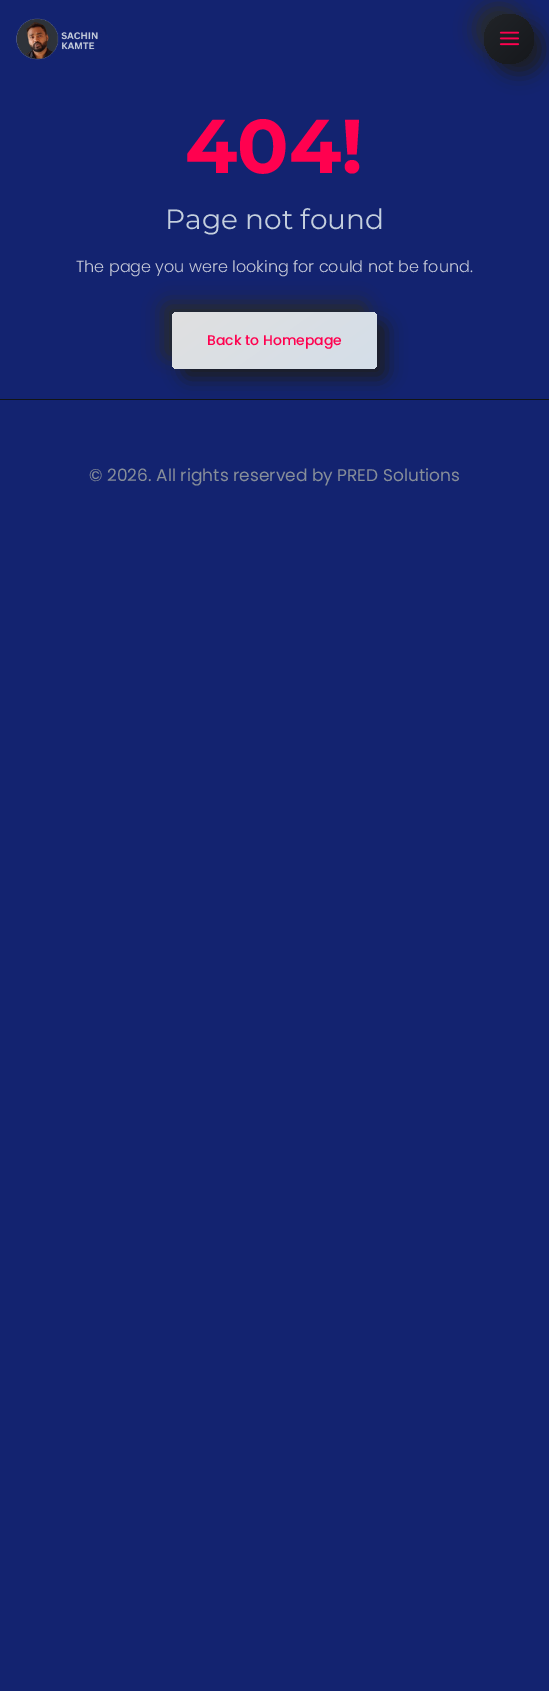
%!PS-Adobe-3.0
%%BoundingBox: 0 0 549 1691
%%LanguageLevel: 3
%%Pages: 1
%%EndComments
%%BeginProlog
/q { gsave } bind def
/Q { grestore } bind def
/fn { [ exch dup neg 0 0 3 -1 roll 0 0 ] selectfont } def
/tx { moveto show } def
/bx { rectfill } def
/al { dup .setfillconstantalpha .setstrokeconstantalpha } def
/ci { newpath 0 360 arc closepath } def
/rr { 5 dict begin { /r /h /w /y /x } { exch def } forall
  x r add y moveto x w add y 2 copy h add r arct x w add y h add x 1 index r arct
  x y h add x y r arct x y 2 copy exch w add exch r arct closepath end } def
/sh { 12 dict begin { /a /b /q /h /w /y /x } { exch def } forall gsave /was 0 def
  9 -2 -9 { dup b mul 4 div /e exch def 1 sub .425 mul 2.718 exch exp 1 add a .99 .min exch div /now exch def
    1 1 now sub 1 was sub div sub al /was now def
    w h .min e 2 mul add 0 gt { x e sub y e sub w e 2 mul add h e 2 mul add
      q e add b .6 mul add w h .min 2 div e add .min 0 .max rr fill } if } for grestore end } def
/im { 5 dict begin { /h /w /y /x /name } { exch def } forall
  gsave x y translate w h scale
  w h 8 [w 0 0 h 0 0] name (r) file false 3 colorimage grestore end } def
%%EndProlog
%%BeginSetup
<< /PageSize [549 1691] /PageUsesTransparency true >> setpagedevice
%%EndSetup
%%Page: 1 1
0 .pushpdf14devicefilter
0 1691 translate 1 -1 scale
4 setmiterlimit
0.075 0.137 0.439 setrgbcolor
0 0 549 1691 bx
(image0.raw) 16 18 82 42 im
0.149 0.165 0.18 setrgbcolor
474 4 50 50 25 9.5 1 sh
0.11 0.118 0.133 setrgbcolor
494 24 50 50 25 9.5 1 sh
q 509 39 25 ci clip newpath
<< /ShadingType 2 /ColorSpace /DeviceRGB /Coords [484 14 534 64] /Extend [true true] /Function << /FunctionType 2 /Domain [0 1] /C0 [0.129 0.141 0.157] /C1 [0.086 0.094 0.11] /N 1 >> >> shfill Q
(image1.raw) 499 31 21 15 im
/Montserrat-Bold 76 fn
1 0.004 0.31 setrgbcolor
(404!) 185 173 tx
/Montserrat-Regular 28 fn
0.769 0.812 0.871 setrgbcolor
(Page not found) 165 229 tx
/Poppins-Light 16 fn
0.776 0.788 0.847 setrgbcolor
(The page you were looking for could not be found.) 76 272 tx
0.149 0.165 0.18 setrgbcolor
162 302 205 57 6 9.5 1 sh
0.071 0.078 0.082 setrgbcolor
0 399 549 1 bx
0.11 0.118 0.133 setrgbcolor
182 322 205 57 6 9.5 1 sh
q 172 312 205 57 6 rr clip newpath
<< /ShadingType 2 /ColorSpace /DeviceRGB /Coords [227 273 322 408] /Extend [true true] /Function << /FunctionType 2 /Domain [0 1] /C0 [0.878 0.878 0.878] /C1 [0.831 0.871 0.914] /N 1 >> >> shfill Q
/Poppins-Medium 14 fn
1 0.004 0.31 setrgbcolor
(Back to Homepage) 207 345 tx
/Poppins-Regular 17 fn
0.529 0.557 0.6 setrgbcolor
(© 2026. All rights reserved by PRED Solutions) 89 481 tx
.poppdf14devicefilter showpage
%%EOF
